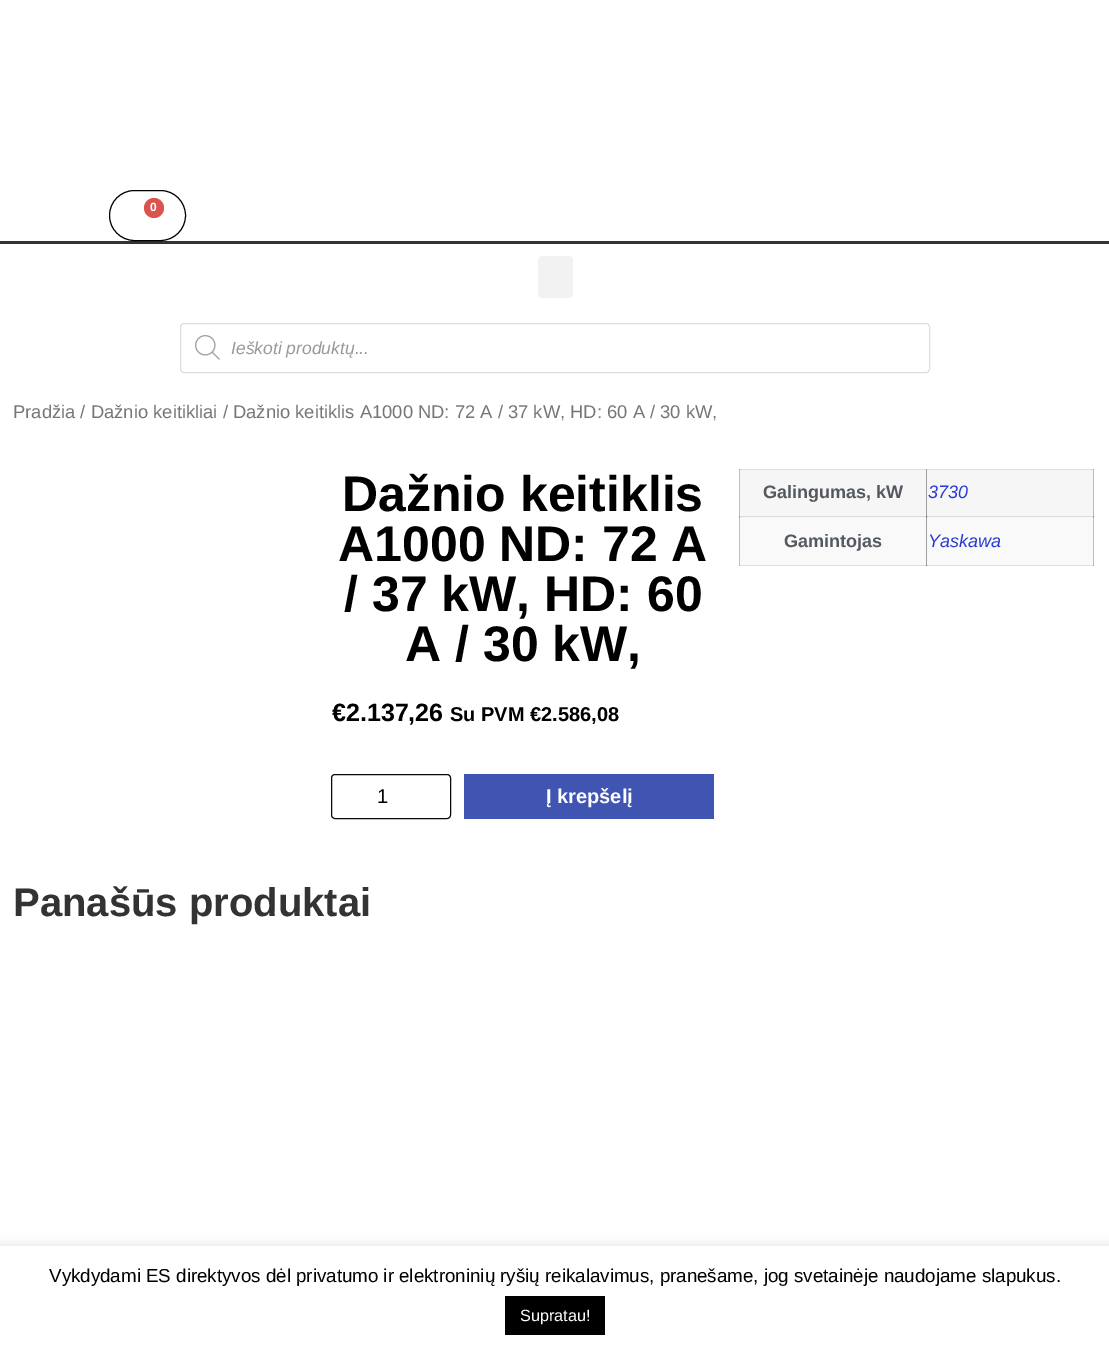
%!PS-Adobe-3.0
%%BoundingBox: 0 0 1109 1356
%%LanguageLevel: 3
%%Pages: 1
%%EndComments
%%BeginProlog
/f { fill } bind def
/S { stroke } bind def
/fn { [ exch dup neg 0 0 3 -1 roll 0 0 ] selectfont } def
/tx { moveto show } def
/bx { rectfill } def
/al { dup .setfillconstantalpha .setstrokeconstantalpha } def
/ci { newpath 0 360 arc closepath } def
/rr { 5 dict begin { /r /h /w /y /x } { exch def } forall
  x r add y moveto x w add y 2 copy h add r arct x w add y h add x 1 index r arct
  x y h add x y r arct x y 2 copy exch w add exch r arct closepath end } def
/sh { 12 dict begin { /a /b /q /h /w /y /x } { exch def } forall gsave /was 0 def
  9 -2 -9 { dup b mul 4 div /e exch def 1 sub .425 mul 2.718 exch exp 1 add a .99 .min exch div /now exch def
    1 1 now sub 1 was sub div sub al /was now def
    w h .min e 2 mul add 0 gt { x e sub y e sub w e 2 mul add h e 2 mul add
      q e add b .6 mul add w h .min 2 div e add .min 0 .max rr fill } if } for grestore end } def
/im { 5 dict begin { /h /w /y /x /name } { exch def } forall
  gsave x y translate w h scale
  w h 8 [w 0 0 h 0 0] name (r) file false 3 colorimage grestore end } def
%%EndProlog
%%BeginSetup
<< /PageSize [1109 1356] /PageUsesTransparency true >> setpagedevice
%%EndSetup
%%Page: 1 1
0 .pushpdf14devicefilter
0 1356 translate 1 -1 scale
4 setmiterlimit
1 setgray
0 0 1109 1356 bx
0.753 setgray
739 469 1 97 bx
0.627 setgray
739 516 1 2 bx
0.592 setgray
739 516 1 1 bx
0.702 setgray
739 565 1 1 bx
739 469 1 1 bx
0.2 setgray
0 241 1109 3 bx
0 setgray
109.5 190.5 76 50 25 rr S
0.851 0.325 0.31 setrgbcolor
154 208 10 ci f
/LiberationSans-Bold 12 fn
1 setgray
(0) 150 211 tx
0.949 setgray
538 256 35 42 4 rr f
0.867 setgray
180.5 323.5 749 49 3.5 rr S
(image0.raw) 195 335 25 25 im
/LiberationSans-Italic 17.5 fn
0.6 setgray
(Ieškoti produktų...) 231 354 tx
/LiberationSans-Regular 18.4 fn
0.463 setgray
(Pradžia / Dažnio keitikliai / Dažnio keitiklis A1000 ND: 72 A / 37 kW, HD: 60 A / 30 kW,) 13 418 tx
/LiberationSans-Bold 50 fn
0 setgray
(Dažnio keitiklis) 342 511 tx
(A1000 ND: 72 A) 338 561 tx
(/ 37 kW, HD: 60) 344 611 tx
(A / 30 kW,) 405 661 tx
/LiberationSans-Bold 25 fn
(€2.137,26) 332 721 tx
/LiberationSans-Bold 20 fn
(Su PVM €2.586,08) 450 721 tx
0.035 setgray
331.5 774.5 119 44 3.5 rr S
/LiberationSans-Regular 20 fn
0 setgray
(1) 377 803 tx
0.251 0.329 0.698 setrgbcolor
464 774 250 45 bx
/LiberationSans-Bold 20 fn
1 setgray
(Į krepšelį) 546 803 tx
0.965 setgray
740 470 353 48 bx
0.867 setgray
740 516 354 1 bx
0.62 setgray
926 469 1 49 bx
0.78 setgray
926 516 2 1 bx
0.533 setgray
926 516 1 2 bx
0.467 setgray
926 516 1 1 bx
0.867 setgray
740 469 188 1 bx
0.596 setgray
926 469 1 1 bx
/LiberationSans-Bold 18 fn
0.329 0.349 0.373 setrgbcolor
(Galingumas, kW) 763 498 tx
0.733 setgray
1093 469 1 49 bx
0.62 setgray
1093 516 1 2 bx
0.557 setgray
1093 516 1 1 bx
0.867 setgray
928 469 166 1 bx
0.686 setgray
1093 469 1 1 bx
/LiberationSans-Italic 18 fn
0.161 0.227 0.839 setrgbcolor
(3730) 928 498 tx
0.976 setgray
740 518 353 47 bx
0.878 setgray
740 565 354 1 bx
0.624 setgray
926 518 1 48 bx
0.792 setgray
926 565 2 1 bx
0.537 setgray
926 565 1 1 bx
/LiberationSans-Bold 18 fn
0.329 0.349 0.373 setrgbcolor
(Gamintojas) 784 547 tx
0.741 setgray
1093 518 1 48 bx
0.667 setgray
1093 565 1 1 bx
/LiberationSans-Italic 18 fn
0.161 0.227 0.839 setrgbcolor
(Yaskawa) 928 547 tx
/LiberationSans-Bold 40 fn
0.2 setgray
(Panašūs produktai) 13 916 tx
0.675 0.671 0.671 setrgbcolor
0 1245 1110 110 0 6 0.3 sh
1 setgray
0 1246 1109 110 bx
/LiberationSans-Regular 18.75 fn
0 setgray
(Vykdydami ES direktyvos dėl privatumo ir elektroninių ryšių reikalavimus, pranešame, jog svetainėje naudojame slapukus.) 49 1282 tx
505 1296 100 39 bx
/LiberationSans-Regular 16.25 fn
1 setgray
(Supratau!) 520 1321 tx
.poppdf14devicefilter showpage
%%EOF
